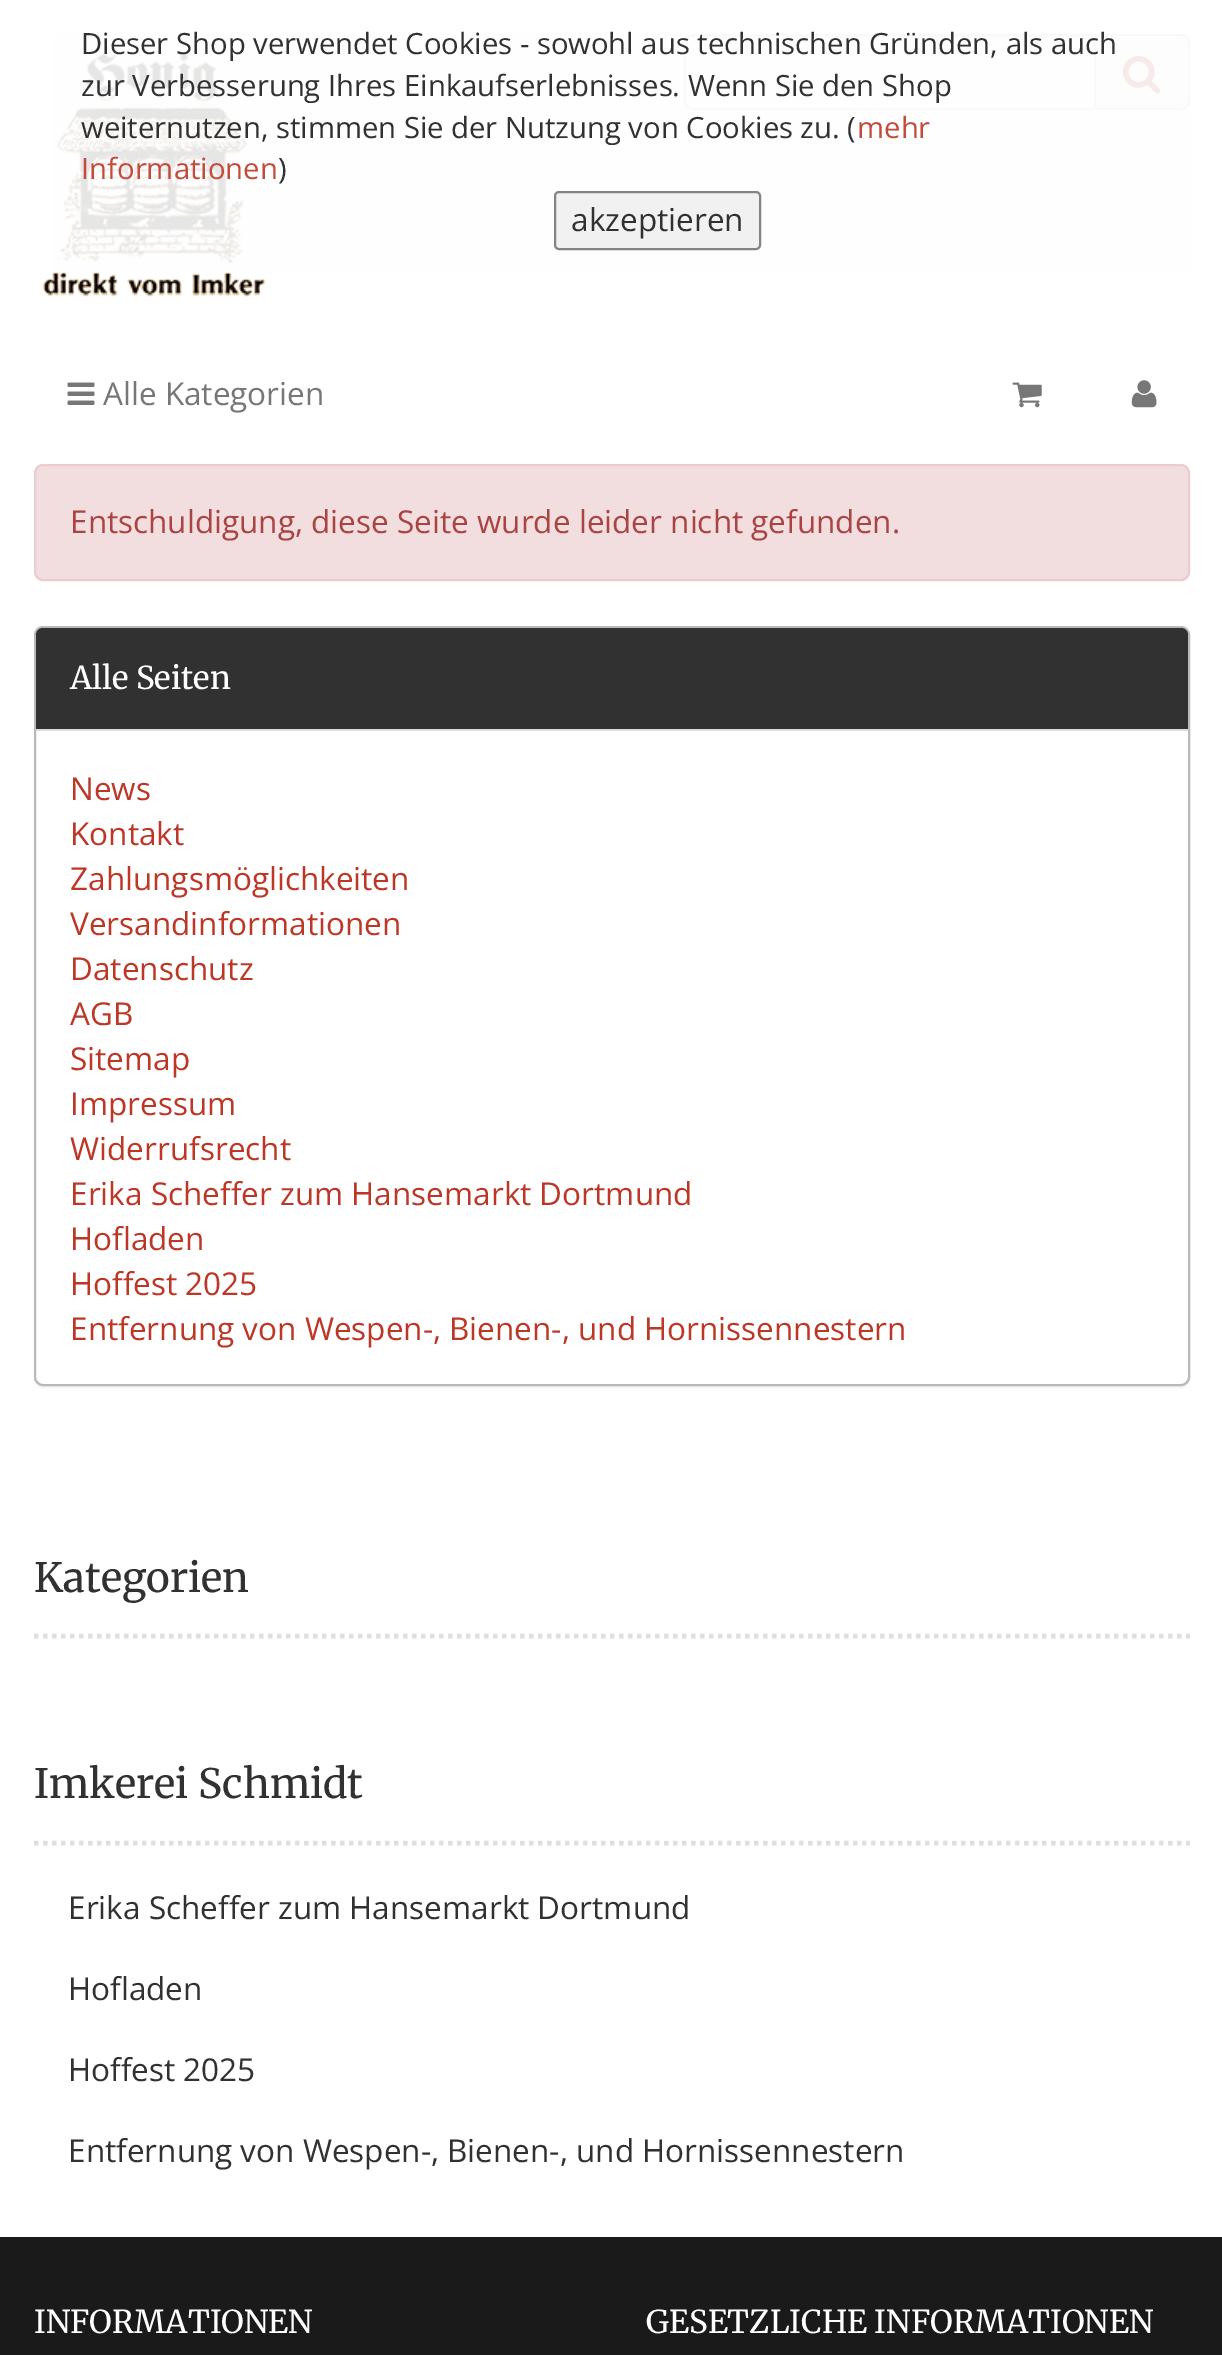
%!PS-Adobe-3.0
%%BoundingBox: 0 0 1222 2355
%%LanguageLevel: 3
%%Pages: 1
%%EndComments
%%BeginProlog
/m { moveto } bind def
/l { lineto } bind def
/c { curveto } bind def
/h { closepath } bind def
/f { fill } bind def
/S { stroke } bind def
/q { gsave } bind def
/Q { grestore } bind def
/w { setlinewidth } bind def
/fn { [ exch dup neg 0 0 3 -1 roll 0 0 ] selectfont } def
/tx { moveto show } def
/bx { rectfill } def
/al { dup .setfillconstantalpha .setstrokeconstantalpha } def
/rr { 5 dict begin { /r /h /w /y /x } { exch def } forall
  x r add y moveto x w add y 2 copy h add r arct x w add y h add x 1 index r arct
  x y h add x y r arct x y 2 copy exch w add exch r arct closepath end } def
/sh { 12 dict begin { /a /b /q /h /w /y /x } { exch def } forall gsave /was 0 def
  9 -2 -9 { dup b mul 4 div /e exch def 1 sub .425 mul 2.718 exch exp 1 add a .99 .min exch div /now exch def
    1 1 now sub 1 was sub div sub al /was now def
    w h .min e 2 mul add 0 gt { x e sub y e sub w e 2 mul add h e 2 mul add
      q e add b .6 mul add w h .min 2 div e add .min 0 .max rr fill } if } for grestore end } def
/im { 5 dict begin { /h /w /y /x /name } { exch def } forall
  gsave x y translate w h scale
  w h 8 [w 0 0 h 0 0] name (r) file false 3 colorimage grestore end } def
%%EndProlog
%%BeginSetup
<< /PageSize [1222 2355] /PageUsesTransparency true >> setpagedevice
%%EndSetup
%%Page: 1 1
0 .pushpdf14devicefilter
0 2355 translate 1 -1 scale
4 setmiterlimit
1 setgray
0 0 1222 2355 bx
(image0.raw) 43 52 222 245 im
0.925 setgray
693 38 m 1094 38 l 1094 36 l 693 36 l 688 36 686 41 686 45 c 686 41 689 38 693 38 c h f
0.8 setgray
2 w
693 35 m 1095 35 l 1095 109 l 693 109 l 688.5 109 685 105.5 685 101 c 685 43 l 685 38.5 688.5 35 693 35 c h S
0.953 setgray
1096 34 m 1181 34 l 1186 34 1190 38 1190 43 c 1190 101 l 1190 106 1186 110 1181 110 c 1096 110 l h f
0.8 setgray
1096 34 m 1181 34 l 1186 34 1190 38 1190 43 c 1190 101 l 1190 106 1186 110 1181 110 c 1096 110 l h 1096 36 m 1181 36 l 1185 36 1188 39 1188 43 c 1188 101 l 1188 105 1185 108 1181 108 c 1096 108 l h eofill
(image1.raw) 1122 55 39 39 im
0.9 al
0.996 setgray
53 34 1137 238 bx
/OpenSans-Regular 29.25 fn
1 al
0.192 setgray
(Dieser Shop verwendet Cookies - sowohl aus technischen Gründen, als auch) 81 54 tx
(zur Verbesserung Ihres Einkaufserlebnisses. Wenn Sie den Shop) 81 96 tx
(weiternutzen, stimmen Sie der Nutzung von Cookies zu. \() 81 138 tx
0.765 0.294 0.235 setrgbcolor
(mehr) 857 138 tx
(Informationen) 81 179 tx
0.192 setgray
(\)) 278 179 tx
0.945 setgray
555 192 205 57 4 rr q f Q
0.518 setgray
S
/OpenSans-Regular 31.5 fn
0.192 setgray
(akzeptieren) 571 231 tx
(image2.raw) 67 382 28 23 im
0.467 setgray
(Alle Kategorien) 103 405 tx
(image3.raw) 1012 382 30 26 im
(image4.raw) 1131 380 26 28 im
0.949 0.871 0.871 setrgbcolor
35 465 1154 115 8 rr q f Q
0.922 0.8 0.82 setrgbcolor
S
0.663 0.267 0.259 setrgbcolor
(Entschuldigung, diese Seite wurde leider nicht gefunden.) 70 533 tx
0 setgray
34 628 1156 760 9 1 0.05 sh
1 setgray
35 627 1154 758 8 rr q f Q
0.725 setgray
S
0.192 setgray
43 628 m 1181 628 l 1185 628 1188 631 1188 635 c 1188 731 l 36 731 l 36 635 l 36 631 39 628 43 628 c h f
0.867 setgray
36 729 1152 2 bx
/Merriweather-Regular 31.5 fn
1 setgray
(Alle Seiten) 70 689 tx
/OpenSans-Regular 31.5 fn
0.737 0.216 0.149 setrgbcolor
(News) 70 800 tx
(Kontakt) 70 845 tx
(Zahlungsmöglichkeiten) 70 890 tx
(Versandinformationen) 70 935 tx
(Datenschutz) 70 980 tx
(AGB) 70 1025 tx
(Sitemap) 70 1070 tx
(Impressum) 70 1115 tx
(Widerrufsrecht) 70 1160 tx
(Erika Scheffer zum Hansemarkt Dortmund) 70 1205 tx
(Hofladen) 70 1250 tx
(Hoffest 2025) 70 1295 tx
(Entfernung von Wespen-, Bienen-, und Hornissennestern) 70 1340 tx
0.875 setgray
4.5 w
[4.5 4.5] 0 setdash
34 1636 m 1190 1636 l S
/Merriweather-Regular 40.5 fn
0.192 setgray
(Kategorien) 34 1592 tx
0.875 setgray
34 1843 m 1190 1843 l S
0.192 setgray
(Imkerei Schmidt) 34 1798 tx
/OpenSans-Regular 31.5 fn
(Erika Scheffer zum Hansemarkt Dortmund) 68 1919 tx
(Hofladen) 68 2000 tx
(Hoffest 2025) 68 2081 tx
(Entfernung von Wespen-, Bienen-, und Hornissennestern) 68 2162 tx
0.102 setgray
0 2237 1222 118 bx
/Merriweather-Regular 31.5 fn
1 setgray
(INFORMATIONEN) 34 2333 tx
(GESETZLICHE INFORMATIONEN) 646 2333 tx
.poppdf14devicefilter showpage
%%EOF
